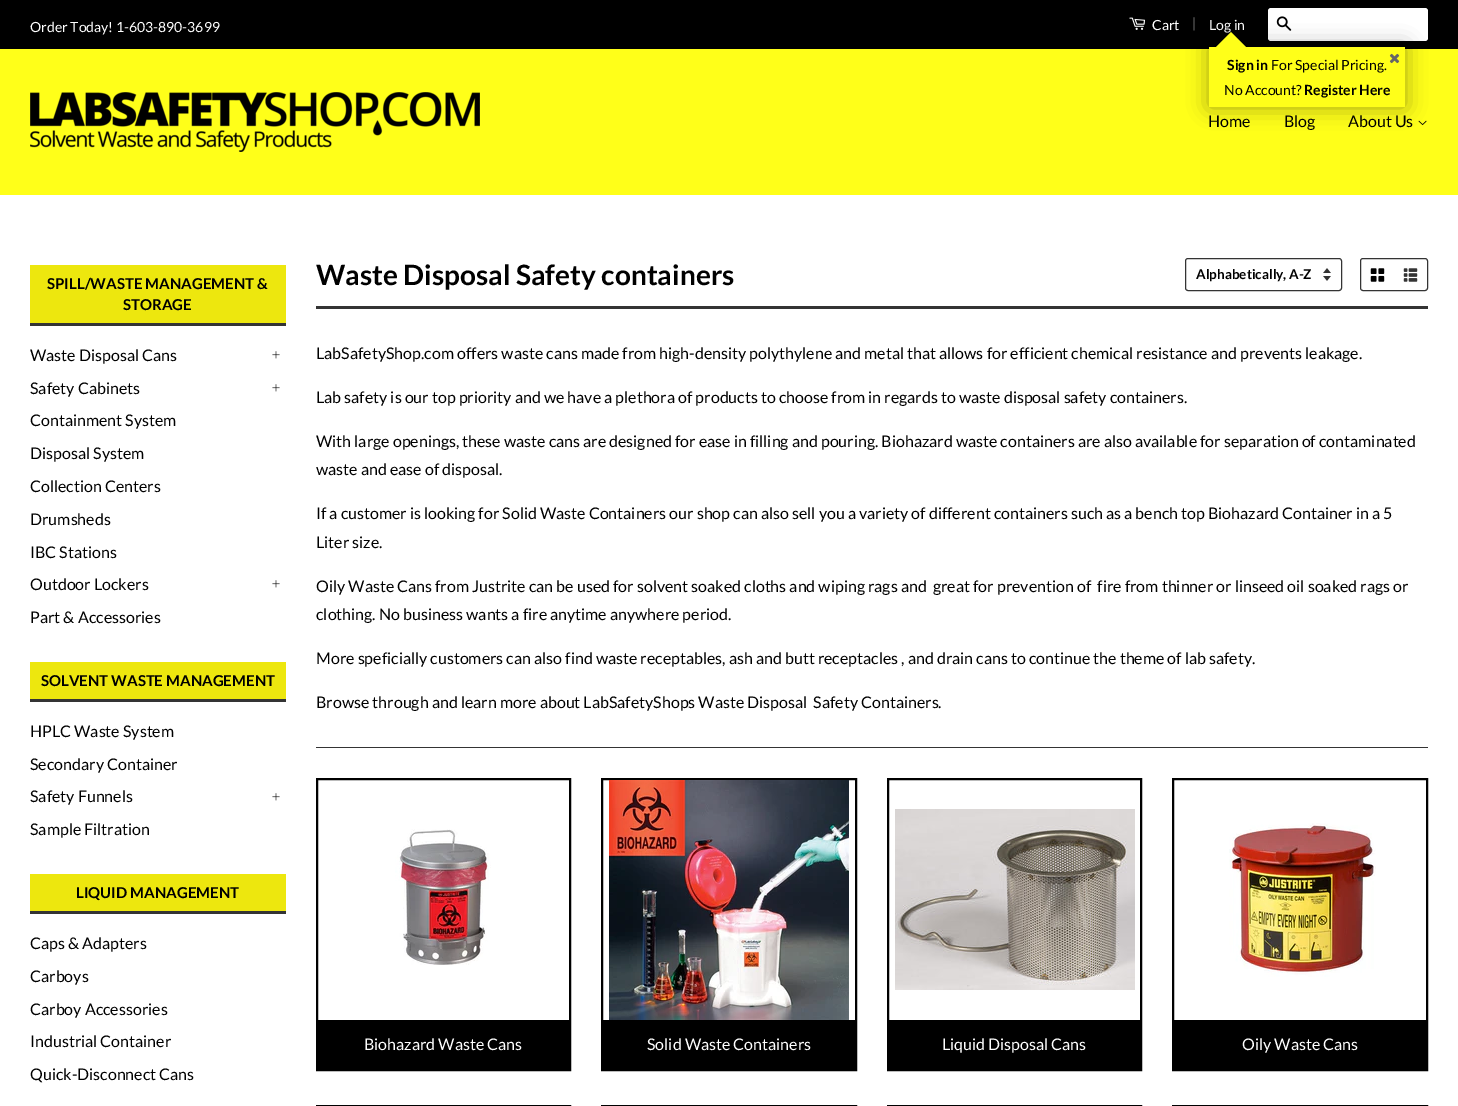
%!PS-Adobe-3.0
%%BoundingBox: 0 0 1458 1106
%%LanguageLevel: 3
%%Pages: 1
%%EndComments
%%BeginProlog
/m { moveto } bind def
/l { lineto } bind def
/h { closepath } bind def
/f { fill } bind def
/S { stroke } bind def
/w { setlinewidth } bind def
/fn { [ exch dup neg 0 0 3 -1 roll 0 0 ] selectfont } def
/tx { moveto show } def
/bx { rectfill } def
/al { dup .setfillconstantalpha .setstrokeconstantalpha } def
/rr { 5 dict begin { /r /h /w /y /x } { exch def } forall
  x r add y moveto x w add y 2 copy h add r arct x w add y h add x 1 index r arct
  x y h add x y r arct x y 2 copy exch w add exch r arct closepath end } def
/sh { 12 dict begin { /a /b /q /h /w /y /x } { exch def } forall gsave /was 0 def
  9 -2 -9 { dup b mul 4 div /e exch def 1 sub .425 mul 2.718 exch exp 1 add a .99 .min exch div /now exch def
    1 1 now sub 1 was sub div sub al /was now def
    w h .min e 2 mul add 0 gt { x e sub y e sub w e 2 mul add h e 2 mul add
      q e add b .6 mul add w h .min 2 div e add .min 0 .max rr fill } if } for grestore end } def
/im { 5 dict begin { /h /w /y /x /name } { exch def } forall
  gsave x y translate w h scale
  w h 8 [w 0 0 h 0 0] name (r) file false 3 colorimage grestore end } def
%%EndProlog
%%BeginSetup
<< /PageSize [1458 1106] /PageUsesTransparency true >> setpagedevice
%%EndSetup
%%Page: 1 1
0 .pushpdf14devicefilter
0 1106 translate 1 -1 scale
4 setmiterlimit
1 setgray
0 0 1458 1106 bx
0 setgray
0 0 1458 49 bx
/Lato-Regular 14 fn
1 setgray
(Order Today! 1-603-890-3699) 30 32 tx
(image0.raw) 1129 17 17 13 im
(Cart) 1152 30 tx
0.4 setgray
(|) 1192 28 tx
1 setgray
1268 8 160 33 3 rr f
(image1.raw) 1276 16 16 15 im
(Log in) 1209 30 tx
1 1 0.098 setrgbcolor
0 49 1458 146 bx
(image4.raw) 1418 120 9 6 im
0 setgray
1209 47 196 60 0 10.5 0.35 sh
1 1 0.098 setrgbcolor
1209 47 196 60 bx
1251 52 m 1211 52 l 1231 32 l h f
/Lato-Bold 14 fn
0 setgray
(Sign in) 1227 70 tx
/Lato-Regular 14 fn
(For Special Pricing.) 1271 70 tx
(image2.raw) 1389 53 11 11 im
(No Account?) 1224 95 tx
/Lato-Bold 14 fn
(Register Here) 1304 95 tx
(image3.raw) 30 92 450 60 im
/Lato-Regular 16 fn
(Home) 1208 127 tx
(Blog) 1284 127 tx
(About Us) 1348 127 tx
0.204 setgray
30 323 256 3 bx
0.929 0.906 0.055 setrgbcolor
30 265 256 58 bx
/Lato-Bold 15 fn
0 setgray
(SPILL/WASTE MANAGEMENT &) 47 289 tx
(STORAGE) 123 310 tx
/Lato-Regular 16 fn
(Waste Disposal Cans) 30 361 tx
(image5.raw) 272 351 8 8 im
(Safety Cabinets) 30 394 tx
(image5.raw) 272 384 8 8 im
(Containment System) 30 426 tx
(Disposal System) 30 459 tx
(Collection Centers) 30 492 tx
(Drumsheds) 30 525 tx
(IBC Stations) 30 558 tx
(Outdoor Lockers) 30 590 tx
(image5.raw) 272 580 8 8 im
(Part & Accessories) 30 623 tx
0.204 setgray
30 699 256 3 bx
0.929 0.906 0.055 setrgbcolor
30 662 256 37 bx
/Lato-Bold 15 fn
0 setgray
(SOLVENT WASTE MANAGEMENT) 41 686 tx
/Lato-Regular 16 fn
(HPLC Waste System) 30 737 tx
(Secondary Container) 30 770 tx
(Safety Funnels) 30 802 tx
(image5.raw) 272 793 8 8 im
(Sample Filtration) 30 835 tx
0.204 setgray
30 911 256 3 bx
0.929 0.906 0.055 setrgbcolor
30 874 256 37 bx
/Lato-Bold 15 fn
0 setgray
(LIQUID MANAGEMENT) 76 898 tx
/Lato-Regular 16 fn
(Caps & Adapters) 30 949 tx
(Carboys) 30 982 tx
(Carboy Accessories) 30 1015 tx
(Industrial Container) 30 1047 tx
(Quick-Disconnect Cans) 30 1080 tx
0.204 setgray
316 306 1112 3 bx
/Lato-Bold 28 fn
0 setgray
(Waste Disposal Safety containers) 316 285 tx
(image6.raw) 1323 268 8 13 im
0.204 setgray
1185.5 258.5 156 32 2.5 rr S
/Lato-Bold 13.5 fn
0 setgray
(Alphabetically, A-Z) 1196 279 tx
0.204 setgray
1360.5 258.5 67 32 2.5 rr S
(image7.raw) 1370 268 15 14 im
(image8.raw) 1403 268 15 14 im
/Lato-Regular 16 fn
0 setgray
(LabSafetyShop.com offers waste cans made from high-density polythylene and metal that allows for efficient chemical resistance and prevents leakage.) 316 359 tx
(Lab safety is our top priority and we have a plethora of products to choose from in regards to waste disposal safety containers.) 316 403 tx
(With large openings, these waste cans are designed for ease in filling and pouring. Biohazard waste containers are also available for separation of contaminated) 316 447 tx
(waste and ease of disposal.) 316 475 tx
(If a customer is looking for Solid Waste Containers our shop can also sell you a variety of different containers such as a bench top Biohazard Container in a 5) 316 519 tx
(Liter size.) 316 548 tx
(Oily Waste Cans from Justrite can be used for solvent soaked cloths and wiping rags and  great for prevention of  fire from thinner or linseed oil soaked rags or) 316 592 tx
(clothing. No business wants a fire anytime anywhere period.) 316 620 tx
(More speficially customers can also find waste receptables, ash and butt receptacles , and drain cans to continue the theme of lab safety.) 316 664 tx
(Browse through and learn more about LabSafetyShops Waste Disposal  Safety Containers.) 316 708 tx
0.204 setgray
316 747 1112 1 bx
0 setgray
2 w
317 779 253 291 rectstroke
(image9.raw) 395 829 96 136 im
318 1020 251 49 bx
1 setgray
(Biohazard Waste Cans) 364 1050 tx
0 setgray
602 779 254 291 rectstroke
(image10.raw) 609 780 240 240 im
603 1020 252 49 bx
1 setgray
(Solid Waste Containers) 647 1050 tx
0 setgray
888 779 253 291 rectstroke
(image11.raw) 895 809 240 181 im
889 1020 251 49 bx
1 setgray
(Liquid Disposal Cans) 942 1050 tx
0 setgray
1173 779 254 291 rectstroke
(image12.raw) 1229 823 147 154 im
1174 1020 252 49 bx
1 setgray
(Oily Waste Cans) 1242 1050 tx
0 setgray
317 1106 253 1 rectstroke
602 1106 254 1 rectstroke
888 1106 253 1 rectstroke
1173 1106 254 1 rectstroke
.poppdf14devicefilter showpage
%%EOF
